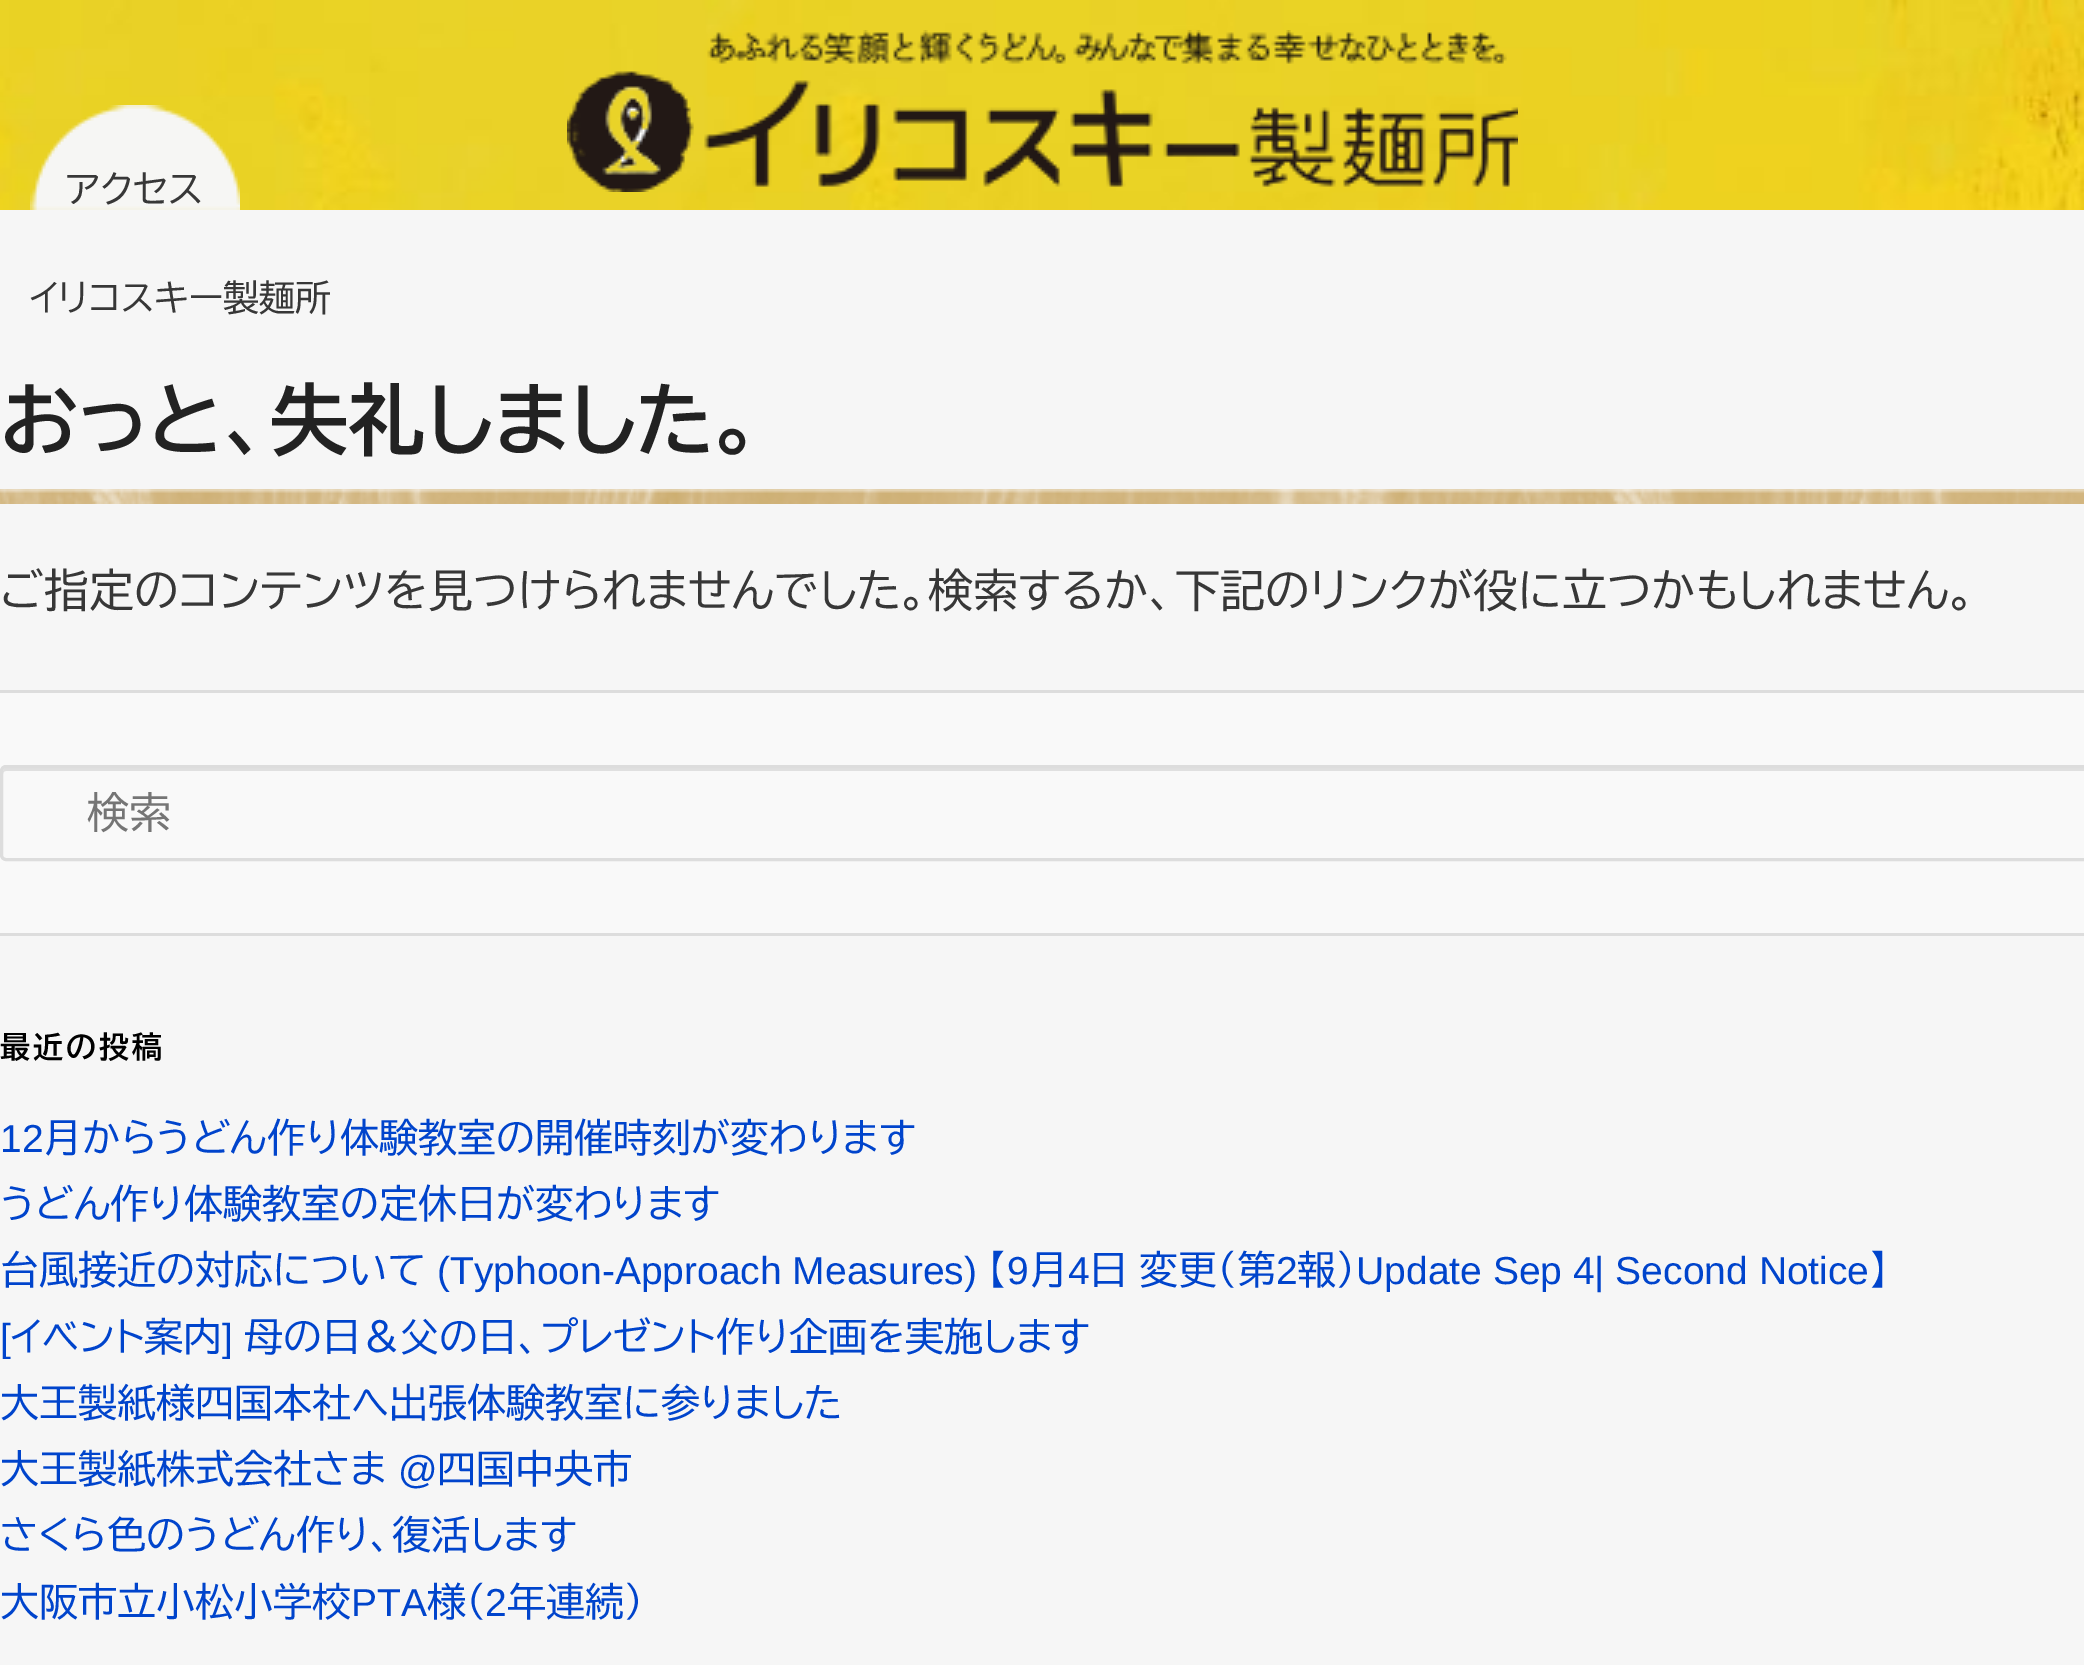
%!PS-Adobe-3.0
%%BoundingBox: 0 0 2084 1665
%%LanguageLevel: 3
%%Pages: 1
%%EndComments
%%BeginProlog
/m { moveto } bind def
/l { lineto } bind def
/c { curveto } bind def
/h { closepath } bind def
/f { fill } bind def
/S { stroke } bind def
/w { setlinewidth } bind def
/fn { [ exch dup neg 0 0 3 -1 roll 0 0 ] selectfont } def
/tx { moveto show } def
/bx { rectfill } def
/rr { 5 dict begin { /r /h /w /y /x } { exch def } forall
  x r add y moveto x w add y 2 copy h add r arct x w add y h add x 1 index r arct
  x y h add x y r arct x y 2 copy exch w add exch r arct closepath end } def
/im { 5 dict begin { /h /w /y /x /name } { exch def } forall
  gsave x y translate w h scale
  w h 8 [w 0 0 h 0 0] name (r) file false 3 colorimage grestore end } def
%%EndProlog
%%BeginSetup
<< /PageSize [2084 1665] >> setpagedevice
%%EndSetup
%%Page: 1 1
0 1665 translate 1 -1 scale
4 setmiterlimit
0.965 setgray
0 0 2084 1665 bx
(image0.raw) 0 0 2084 210 im
(image1.raw) 30 105 210 105 im
/BIZUDPGothic-Regular 38 fn
0.216 setgray
(アクセス) 66 203 tx
(image2.raw) 567 30 951 162 im
/BIZUDPGothic-Regular 36 fn
(イリコスキー製麺所) 30 311 tx
(image3.raw) 0 489 2084 15 im
/BIZUDPGothic-Bold 78 fn
0.133 setgray
(おっと、失礼しました。) 0 449 tx
/BIZUDPGothic-Regular 45 fn
0.216 setgray
(ご指定のコンテンツを見つけられませんでした。検索するか、下記のリンクが役に立つかもしれません。) 0 607 tx
0.976 setgray
0 693 2084 240 bx
0.867 setgray
0 690 2084 3 bx
0 933 2084 3 bx
0.878 setgray
6 771 m 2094 771 l 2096 771 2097 772 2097 774 c 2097 772 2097 768 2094 768 c 6 768 l 3 768 3 772 3 774 c 3 772 4 771 6 771 c h f
0.867 setgray
3 w
1.5 766.5 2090 93 4.5 rr S
/BIZUDPGothic-Regular 42 fn
0.459 setgray
(検索) 87 828 tx
/BIZUDPGothic-Bold 30 fn
0 setgray
0 1058 m 3 0 (最近の投稿) ashow
/LiberationSans-Regular 39 fn
0 0.267 0.8 setrgbcolor
(12) 0 1152 tx
/BIZUDPGothic-Regular 39 fn
(月からうどん作り体験教室の開催時刻が変わります) 43 1152 tx
(うどん作り体験教室の定休日が変わります) 0 1218 tx
(台風接近の対応について) 0 1284 tx
/LiberationSans-Regular 39 fn
(\(Typhoon-Approach Measures\)) 437 1284 tx
/BIZUDPGothic-Regular 39 fn
(【) 987 1284 tx
/LiberationSans-Regular 39 fn
(9) 1007 1284 tx
/BIZUDPGothic-Regular 39 fn
(月) 1029 1284 tx
/LiberationSans-Regular 39 fn
(4) 1068 1284 tx
/BIZUDPGothic-Regular 39 fn
(日) 1089 1284 tx
(変更（第) 1139 1284 tx
/LiberationSans-Regular 39 fn
(2) 1276 1284 tx
/BIZUDPGothic-Regular 39 fn
(報）) 1297 1284 tx
/LiberationSans-Regular 39 fn
(Update Sep 4| Second Notice) 1356 1284 tx
/BIZUDPGothic-Regular 39 fn
(】) 1869 1284 tx
/LiberationSans-Regular 39 fn
([) 0 1351 tx
/BIZUDPGothic-Regular 39 fn
(イベント案内) 11 1351 tx
/LiberationSans-Regular 39 fn
(]) 222 1351 tx
/BIZUDPGothic-Regular 39 fn
(母の日＆父の日、プレゼント作り企画を実施します) 244 1351 tx
(大王製紙様四国本社へ出張体験教室に参りました) 0 1417 tx
(大王製紙株式会社さま) 0 1483 tx
/LiberationSans-Regular 39 fn
(@) 398 1483 tx
/BIZUDPGothic-Regular 39 fn
(四国中央市) 437 1483 tx
(さくら色のうどん作り、復活します) 0 1549 tx
(大阪市立小松小学校) 0 1616 tx
/LiberationSans-Regular 39 fn
(PTA) 351 1616 tx
/BIZUDPGothic-Regular 39 fn
(様（) 427 1616 tx
/LiberationSans-Regular 39 fn
(2) 485 1616 tx
/BIZUDPGothic-Regular 39 fn
(年連続）) 507 1616 tx
showpage
%%EOF
